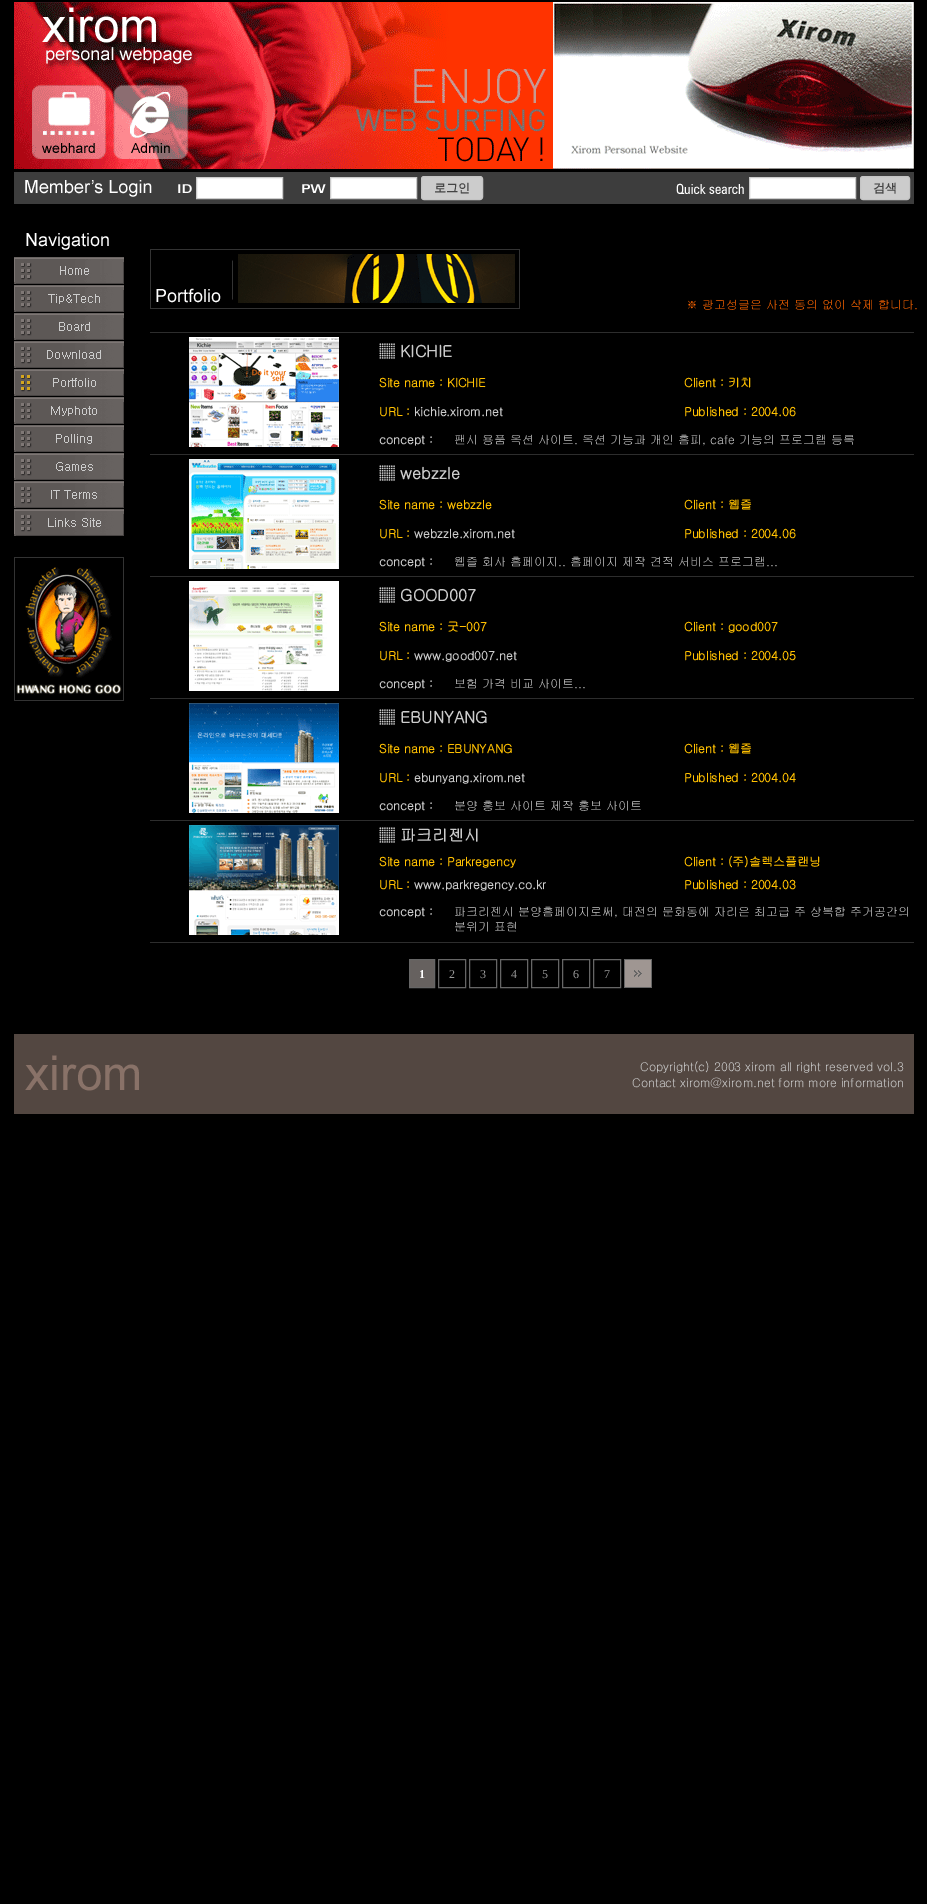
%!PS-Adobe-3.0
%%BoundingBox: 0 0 927 1904
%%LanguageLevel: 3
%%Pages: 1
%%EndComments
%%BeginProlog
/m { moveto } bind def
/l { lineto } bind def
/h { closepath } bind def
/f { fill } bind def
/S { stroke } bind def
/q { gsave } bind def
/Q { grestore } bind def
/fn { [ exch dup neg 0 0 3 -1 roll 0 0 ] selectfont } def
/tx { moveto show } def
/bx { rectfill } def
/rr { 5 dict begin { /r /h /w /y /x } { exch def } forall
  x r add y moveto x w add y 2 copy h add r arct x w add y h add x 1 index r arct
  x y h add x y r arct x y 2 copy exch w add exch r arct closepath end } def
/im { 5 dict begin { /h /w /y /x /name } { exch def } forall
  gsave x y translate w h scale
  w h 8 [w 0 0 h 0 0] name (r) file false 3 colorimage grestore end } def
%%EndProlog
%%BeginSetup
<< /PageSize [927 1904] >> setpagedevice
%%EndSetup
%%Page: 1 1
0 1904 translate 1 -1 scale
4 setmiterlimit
0 setgray
0 0 927 1904 bx
(image0.raw) 14 2 900 167 im
0.239 setgray
14 172 900 32 bx
(image1.raw) 25 180 127 17 im
(image2.raw) 178 184 14 9 im
1 setgray
196.5 177.5 m 282.5 177.5 l 282.5 198.5 l 196.5 198.5 l h q f Q
0.8 setgray
S
(image3.raw) 302 184 24 9 im
1 setgray
330.5 177.5 m 416.5 177.5 l 416.5 198.5 l 330.5 198.5 l h q f Q
0.8 setgray
S
421.5 176.5 61 23 2.5 rr q f Q
0.773 setgray
S
/WenQuanYiZenHei-Bold 12 fn
0.271 setgray
(로그인) 434 192 tx
(image4.raw) 676 183 68 11 im
1 setgray
749.5 177.5 m 855.5 177.5 l 855.5 198.5 l 749.5 198.5 l h q f Q
0.8 setgray
S
860.5 176.5 49 23 2.5 rr q f Q
0.773 setgray
S
0.271 setgray
(검색) 873 192 tx
(image5.raw) 26 233 83 17 im
(image6.raw) 14 257 110 27 im
(image7.raw) 14 285 110 27 im
(image8.raw) 14 313 110 27 im
(image9.raw) 14 341 110 27 im
(image10.raw) 14 369 110 27 im
(image11.raw) 14 397 110 27 im
(image12.raw) 14 425 110 27 im
(image13.raw) 14 453 110 27 im
(image14.raw) 14 481 110 27 im
(image15.raw) 14 509 110 27 im
(image16.raw) 14 557 110 144 im
(image17.raw) 150 249 370 60 im
/Gulim-Regular 12 fn
1 0.4 0 setrgbcolor
(※ 광고성글은 사전 동의 없이 삭제 합니다.) 686 309 tx
0.176 setgray
150 332 764 1 bx
(image18.raw) 189 337 150 110 im
/Gulim-Bold 16 fn
0.8 setgray
(▒ KICHIE) 379 357 tx
/Gulim-Bold 12 fn
1 0.753 0 setrgbcolor
(Site name : KICHIE) 379 387 tx
(Client : 키치) 684 387 tx
(URL :) 379 416 tx
0.8 setgray
(kichie.xirom.net) 414 416 tx
1 0.753 0 setrgbcolor
(Published : 2004.06) 684 416 tx
0.8 setgray
(concept :) 379 444 tx
/Gulim-Regular 12 fn
(팬시 용품 옥션 사이트. 옥션 기능과 개인 홈피, cafe 기능의 프로그램 등록) 454 444 tx
0.176 setgray
150 454 764 1 bx
(image19.raw) 189 459 150 110 im
/Gulim-Bold 16 fn
0.8 setgray
(▒ webzzle) 379 479 tx
/Gulim-Bold 12 fn
1 0.753 0 setrgbcolor
(Site name : webzzle) 379 509 tx
(Client : 웹즐) 684 509 tx
(URL :) 379 538 tx
0.8 setgray
(webzzle.xirom.net) 414 538 tx
1 0.753 0 setrgbcolor
(Published : 2004.06) 684 538 tx
0.8 setgray
(concept :) 379 566 tx
/Gulim-Regular 12 fn
(웹즐 회사 홈페이지.. 홈페이지 제작 견적 서비스 프로그램...) 454 566 tx
0.176 setgray
150 576 764 1 bx
(image20.raw) 189 581 150 110 im
/Gulim-Bold 16 fn
0.8 setgray
(▒ GOOD007) 379 601 tx
/Gulim-Bold 12 fn
1 0.753 0 setrgbcolor
(Site name : 굿-007) 379 631 tx
(Client : good007) 684 631 tx
(URL :) 379 660 tx
0.8 setgray
(www.good007.net) 414 660 tx
1 0.753 0 setrgbcolor
(Published : 2004.05) 684 660 tx
0.8 setgray
(concept :) 379 688 tx
/Gulim-Regular 12 fn
(보험 가격 비교 사이트...) 454 688 tx
0.176 setgray
150 698 764 1 bx
(image21.raw) 189 703 150 110 im
/Gulim-Bold 16 fn
0.8 setgray
(▒ EBUNYANG) 379 723 tx
/Gulim-Bold 12 fn
1 0.753 0 setrgbcolor
(Site name : EBUNYANG) 379 753 tx
(Client : 웹즐) 684 753 tx
(URL :) 379 782 tx
0.8 setgray
(ebunyang.xirom.net) 414 782 tx
1 0.753 0 setrgbcolor
(Published : 2004.04) 684 782 tx
0.8 setgray
(concept :) 379 810 tx
/Gulim-Regular 12 fn
(분양 홍보 사이트 제작 홍보 사이트) 454 810 tx
0.176 setgray
150 820 764 1 bx
(image22.raw) 189 825 150 110 im
/Gulim-Bold 16 fn
0.8 setgray
(▒ 파크리젠시) 379 841 tx
/Gulim-Bold 12 fn
1 0.753 0 setrgbcolor
(Site name : Parkregency) 379 866 tx
(Client : \(주\)솔렉스플랜닝) 684 866 tx
(URL :) 379 889 tx
0.8 setgray
(www.parkregency.co.kr) 414 889 tx
1 0.753 0 setrgbcolor
(Published : 2004.03) 684 889 tx
0.8 setgray
(concept :) 379 916 tx
/Gulim-Regular 12 fn
(파크리젠시 분양홈페이지로써, 대전의 문화동에 자리은 최고급 주 상복합 주거공간의) 454 916 tx
(분위기 표현) 454 931 tx
0.176 setgray
150 942 764 1 bx
0.4 0.38 0.373 setrgbcolor
409.5 959.5 m 434.5 959.5 l 434.5 987.5 l 409.5 987.5 l h q f Q
0.4 setgray
S
/LiberationSerif-Bold 12 fn
1 setgray
(1) 419 978 tx
0.4 setgray
438.5 959.5 27 28 rectstroke
/LiberationSerif-Regular 12 fn
0.6 setgray
(2) 449 978 tx
0.4 setgray
469.5 959.5 27 28 rectstroke
0.6 setgray
(3) 480 978 tx
0.4 setgray
500.5 959.5 27 28 rectstroke
0.6 setgray
(4) 511 978 tx
0.4 setgray
531.5 959.5 27 28 rectstroke
0.6 setgray
(5) 542 978 tx
0.4 setgray
562.5 959.5 27 28 rectstroke
0.6 setgray
(6) 573 978 tx
0.4 setgray
593.5 959.5 27 28 rectstroke
0.6 setgray
(7) 604 978 tx
(image23.raw) 624 959 28 29 im
0.325 0.278 0.255 setrgbcolor
14 1034 900 80 bx
(image24.raw) 25 1055 114 36 im
/Gulim-Regular 12 fn
0.8 setgray
(Copyright\(c\) 2003 xirom all right reserved vol.3) 640 1071 tx
(Contact xirom@xirom.net form more information) 632 1087 tx
showpage
%%EOF
